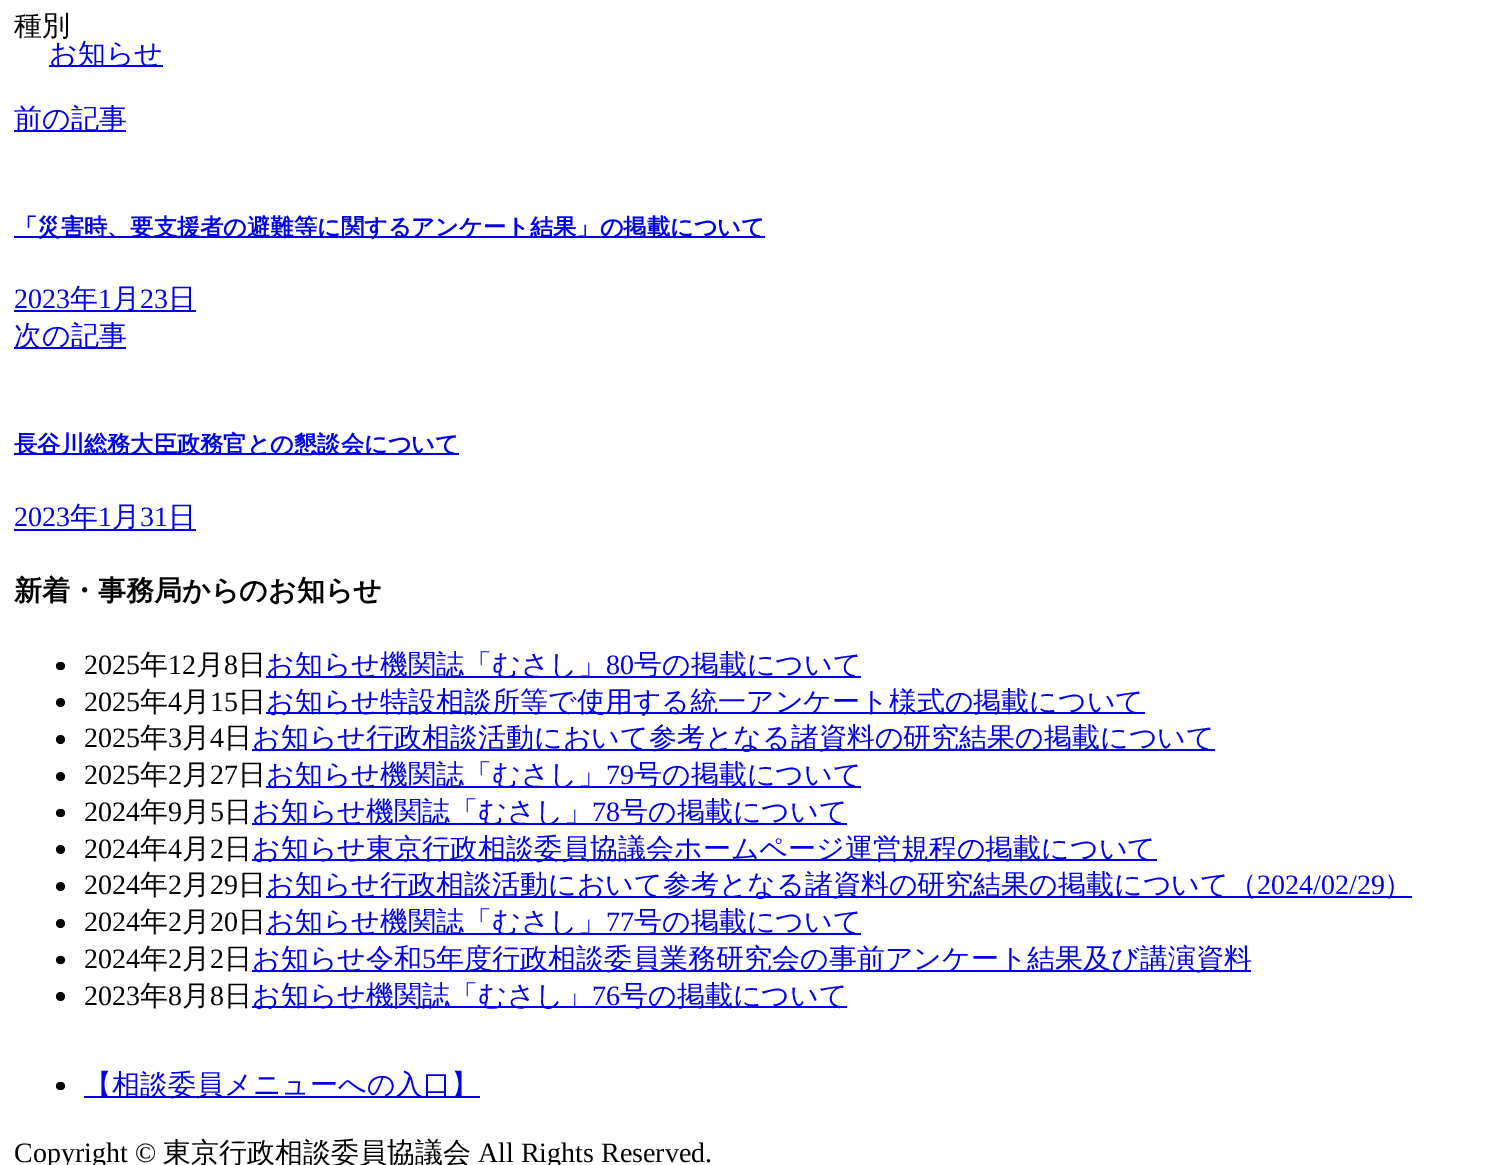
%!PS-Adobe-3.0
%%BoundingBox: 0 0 1486 1165
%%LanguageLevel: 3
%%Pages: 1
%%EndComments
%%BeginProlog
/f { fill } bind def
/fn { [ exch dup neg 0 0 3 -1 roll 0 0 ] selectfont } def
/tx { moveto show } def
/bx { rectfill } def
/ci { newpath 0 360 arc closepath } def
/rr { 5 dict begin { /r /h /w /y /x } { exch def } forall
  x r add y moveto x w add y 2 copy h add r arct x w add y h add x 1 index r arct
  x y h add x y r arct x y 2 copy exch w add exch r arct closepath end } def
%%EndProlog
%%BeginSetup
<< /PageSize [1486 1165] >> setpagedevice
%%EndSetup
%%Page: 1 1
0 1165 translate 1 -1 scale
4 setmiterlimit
1 setgray
0 0 1486 1165 bx
/WenQuanYiZenHei-Medium 28 fn
0 setgray
(種別) 14 35 tx
0 0 0.933 setrgbcolor
49 65 114 2 bx
(お知らせ) 49 63 tx
14 130 112 2 bx
(前の記事) 14 128 tx
14 236 751 2 bx
/WenQuanYiZenHei-Bold 23.25 fn
(「災害時、要支援者の避難等に関するアンケート結果」の掲載について) 14 235 tx
/LiberationSerif-Regular 28 fn
(2023) 14 308 tx
14 310 182 2 bx
/WenQuanYiZenHei-Medium 28 fn
(年) 70 308 tx
/LiberationSerif-Regular 28 fn
(1) 98 308 tx
/WenQuanYiZenHei-Medium 28 fn
(月) 112 308 tx
/LiberationSerif-Regular 28 fn
(23) 140 308 tx
/WenQuanYiZenHei-Medium 28 fn
(日) 168 308 tx
14 347 112 2 bx
(次の記事) 14 345 tx
14 453 445 2 bx
/WenQuanYiZenHei-Bold 23.25 fn
(長谷川総務大臣政務官との懇談会について) 14 452 tx
/LiberationSerif-Regular 28 fn
(2023) 14 526 tx
14 529 182 2 bx
/WenQuanYiZenHei-Medium 28 fn
(年) 70 526 tx
/LiberationSerif-Regular 28 fn
(1) 98 526 tx
/WenQuanYiZenHei-Medium 28 fn
(月) 112 526 tx
/LiberationSerif-Regular 28 fn
(31) 140 526 tx
/WenQuanYiZenHei-Medium 28 fn
(日) 168 526 tx
/WenQuanYiZenHei-Bold 28 fn
0 setgray
(新着・事務局からのお知らせ) 14 600 tx
56 662 9 8 4 rr f
/LiberationSerif-Regular 28 fn
(2025) 84 674 tx
/WenQuanYiZenHei-Medium 28 fn
(年) 140 674 tx
/LiberationSerif-Regular 28 fn
(12) 168 674 tx
/WenQuanYiZenHei-Medium 28 fn
(月) 196 674 tx
/LiberationSerif-Regular 28 fn
(8) 224 674 tx
/WenQuanYiZenHei-Medium 28 fn
(日) 238 674 tx
0 0 0.933 setrgbcolor
266 676 595 2 bx
(お知らせ機関誌「むさし」) 266 674 tx
/LiberationSerif-Regular 28 fn
(80) 606 674 tx
/WenQuanYiZenHei-Medium 28 fn
(号の掲載について) 634 674 tx
0 setgray
60.5 702.5 4.5 ci f
/LiberationSerif-Regular 28 fn
(2025) 84 711 tx
/WenQuanYiZenHei-Medium 28 fn
(年) 140 711 tx
/LiberationSerif-Regular 28 fn
(4) 168 711 tx
/WenQuanYiZenHei-Medium 28 fn
(月) 182 711 tx
/LiberationSerif-Regular 28 fn
(15) 210 711 tx
/WenQuanYiZenHei-Medium 28 fn
(日) 238 711 tx
0 0 0.933 setrgbcolor
266 712 879 2 bx
(お知らせ特設相談所等で使用する統一アンケート様式の掲載について) 266 711 tx
0 setgray
60.5 739.5 4.5 ci f
/LiberationSerif-Regular 28 fn
(2025) 84 747 tx
/WenQuanYiZenHei-Medium 28 fn
(年) 140 747 tx
/LiberationSerif-Regular 28 fn
(3) 168 747 tx
/WenQuanYiZenHei-Medium 28 fn
(月) 182 747 tx
/LiberationSerif-Regular 28 fn
(4) 210 747 tx
/WenQuanYiZenHei-Medium 28 fn
(日) 224 747 tx
0 0 0.933 setrgbcolor
252 749 963 2 bx
(お知らせ行政相談活動において参考となる諸資料の研究結果の掲載について) 252 747 tx
0 setgray
60.5 776.5 4.5 ci f
/LiberationSerif-Regular 28 fn
(2025) 84 784 tx
/WenQuanYiZenHei-Medium 28 fn
(年) 140 784 tx
/LiberationSerif-Regular 28 fn
(2) 168 784 tx
/WenQuanYiZenHei-Medium 28 fn
(月) 182 784 tx
/LiberationSerif-Regular 28 fn
(27) 210 784 tx
/WenQuanYiZenHei-Medium 28 fn
(日) 238 784 tx
0 0 0.933 setrgbcolor
266 786 595 2 bx
(お知らせ機関誌「むさし」) 266 784 tx
/LiberationSerif-Regular 28 fn
(79) 606 784 tx
/WenQuanYiZenHei-Medium 28 fn
(号の掲載について) 634 784 tx
0 setgray
56 809 9 8 4 rr f
/LiberationSerif-Regular 28 fn
(2024) 84 821 tx
/WenQuanYiZenHei-Medium 28 fn
(年) 140 821 tx
/LiberationSerif-Regular 28 fn
(9) 168 821 tx
/WenQuanYiZenHei-Medium 28 fn
(月) 182 821 tx
/LiberationSerif-Regular 28 fn
(5) 210 821 tx
/WenQuanYiZenHei-Medium 28 fn
(日) 224 821 tx
0 0 0.933 setrgbcolor
252 823 595 2 bx
(お知らせ機関誌「むさし」) 252 821 tx
/LiberationSerif-Regular 28 fn
(78) 592 821 tx
/WenQuanYiZenHei-Medium 28 fn
(号の掲載について) 620 821 tx
0 setgray
60.5 849.5 4.5 ci f
/LiberationSerif-Regular 28 fn
(2024) 84 858 tx
/WenQuanYiZenHei-Medium 28 fn
(年) 140 858 tx
/LiberationSerif-Regular 28 fn
(4) 168 858 tx
/WenQuanYiZenHei-Medium 28 fn
(月) 182 858 tx
/LiberationSerif-Regular 28 fn
(2) 210 858 tx
/WenQuanYiZenHei-Medium 28 fn
(日) 224 858 tx
0 0 0.933 setrgbcolor
252 859 905 2 bx
(お知らせ東京行政相談委員協議会ホームページ運営規程の掲載について) 252 858 tx
0 setgray
60.5 886.5 4.5 ci f
/LiberationSerif-Regular 28 fn
(2024) 84 894 tx
/WenQuanYiZenHei-Medium 28 fn
(年) 140 894 tx
/LiberationSerif-Regular 28 fn
(2) 168 894 tx
/WenQuanYiZenHei-Medium 28 fn
(月) 182 894 tx
/LiberationSerif-Regular 28 fn
(29) 210 894 tx
/WenQuanYiZenHei-Medium 28 fn
(日) 238 894 tx
0 0 0.933 setrgbcolor
266 896 1146 2 bx
(お知らせ行政相談活動において参考となる諸資料の研究結果の掲載について（) 266 894 tx
/LiberationSerif-Regular 28 fn
(2024/02/29) 1257 894 tx
/WenQuanYiZenHei-Medium 28 fn
(）) 1384 894 tx
0 setgray
60.5 923.5 4.5 ci f
/LiberationSerif-Regular 28 fn
(2024) 84 931 tx
/WenQuanYiZenHei-Medium 28 fn
(年) 140 931 tx
/LiberationSerif-Regular 28 fn
(2) 168 931 tx
/WenQuanYiZenHei-Medium 28 fn
(月) 182 931 tx
/LiberationSerif-Regular 28 fn
(20) 210 931 tx
/WenQuanYiZenHei-Medium 28 fn
(日) 238 931 tx
0 0 0.933 setrgbcolor
266 933 595 2 bx
(お知らせ機関誌「むさし」) 266 931 tx
/LiberationSerif-Regular 28 fn
(77) 606 931 tx
/WenQuanYiZenHei-Medium 28 fn
(号の掲載について) 634 931 tx
0 setgray
56 956 9 8 4 rr f
/LiberationSerif-Regular 28 fn
(2024) 84 968 tx
/WenQuanYiZenHei-Medium 28 fn
(年) 140 968 tx
/LiberationSerif-Regular 28 fn
(2) 168 968 tx
/WenQuanYiZenHei-Medium 28 fn
(月) 182 968 tx
/LiberationSerif-Regular 28 fn
(2) 210 968 tx
/WenQuanYiZenHei-Medium 28 fn
(日) 224 968 tx
0 0 0.933 setrgbcolor
252 970 999 2 bx
(お知らせ令和) 252 968 tx
/LiberationSerif-Regular 28 fn
(5) 422 968 tx
/WenQuanYiZenHei-Medium 28 fn
(年度行政相談委員業務研究会の事前アンケート結果及び講演資料) 436 968 tx
0 setgray
60.5 996.5 4.5 ci f
/LiberationSerif-Regular 28 fn
(2023) 84 1005 tx
/WenQuanYiZenHei-Medium 28 fn
(年) 140 1005 tx
/LiberationSerif-Regular 28 fn
(8) 168 1005 tx
/WenQuanYiZenHei-Medium 28 fn
(月) 182 1005 tx
/LiberationSerif-Regular 28 fn
(8) 210 1005 tx
/WenQuanYiZenHei-Medium 28 fn
(日) 224 1005 tx
0 0 0.933 setrgbcolor
252 1006 595 2 bx
(お知らせ機関誌「むさし」) 252 1005 tx
/LiberationSerif-Regular 28 fn
(76) 592 1005 tx
/WenQuanYiZenHei-Medium 28 fn
(号の掲載について) 620 1005 tx
0 setgray
56 1082 9 8 4 rr f
0 0 0.933 setrgbcolor
84 1096 396 2 bx
(【相談委員メニューへの入口】) 84 1094 tx
/LiberationSerif-Regular 28 fn
0 setgray
(Copyright ©) 14 1162 tx
/WenQuanYiZenHei-Medium 28 fn
(東京行政相談委員協議会) 163 1162 tx
/LiberationSerif-Regular 28 fn
(All Rights Reserved.) 478 1162 tx
showpage
%%EOF
